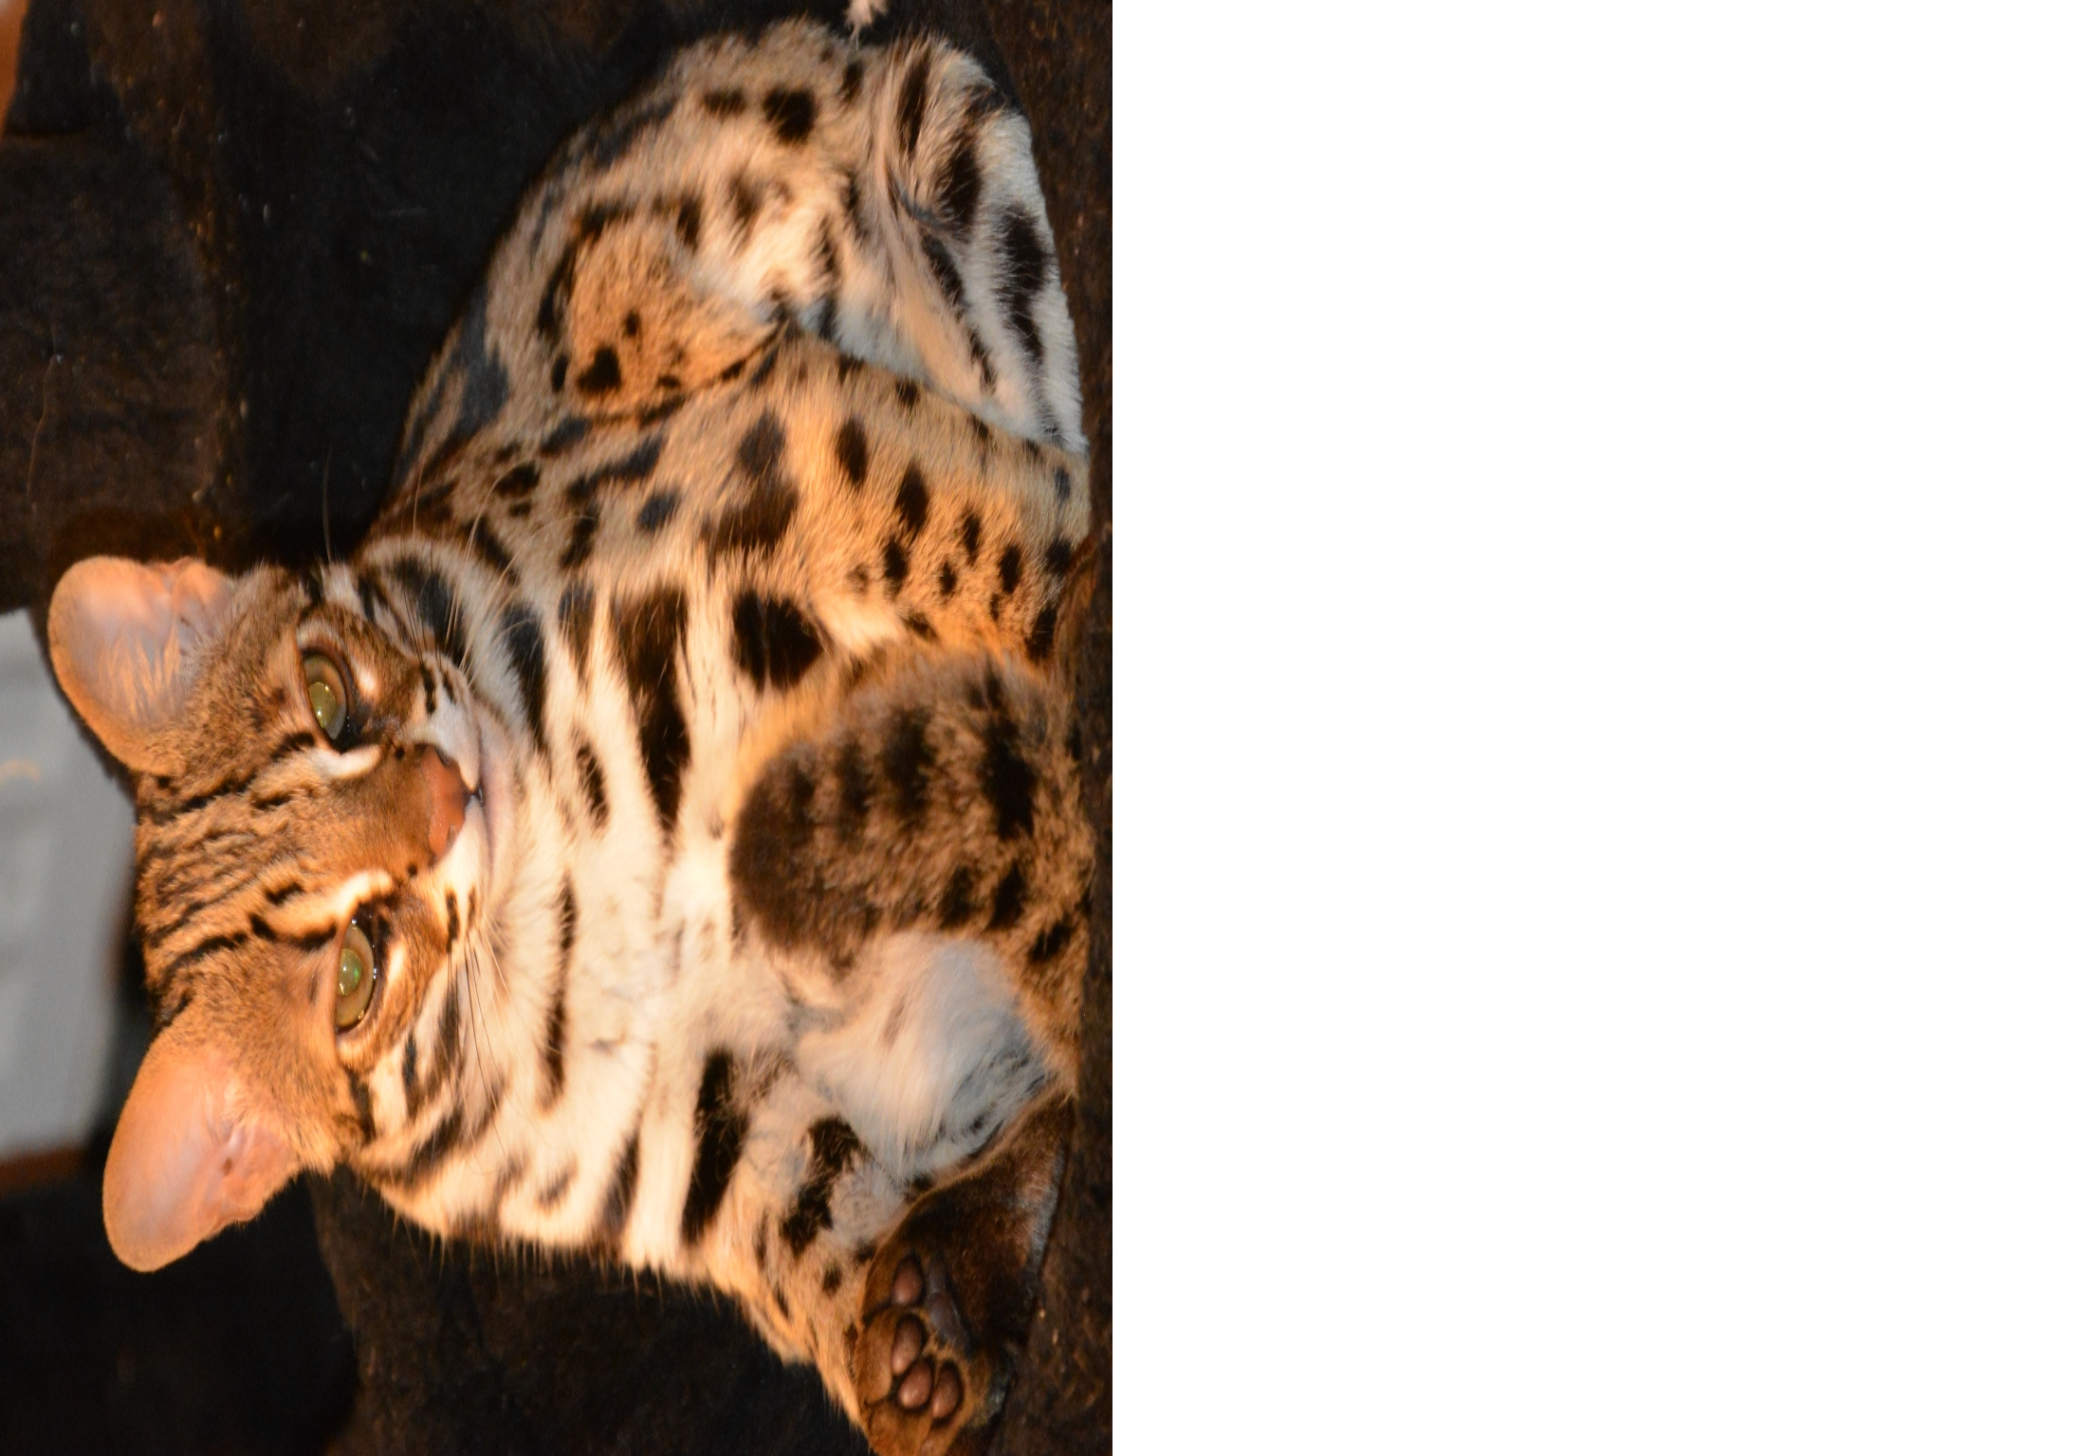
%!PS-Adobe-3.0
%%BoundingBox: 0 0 2083 1456
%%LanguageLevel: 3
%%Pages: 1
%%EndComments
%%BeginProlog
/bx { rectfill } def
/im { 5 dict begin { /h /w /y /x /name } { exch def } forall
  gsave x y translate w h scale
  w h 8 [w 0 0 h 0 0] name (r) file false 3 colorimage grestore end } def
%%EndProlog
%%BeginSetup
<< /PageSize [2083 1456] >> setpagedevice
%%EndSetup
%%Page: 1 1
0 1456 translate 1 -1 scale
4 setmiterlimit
1 setgray
0 0 2083 1456 bx
(image0.raw) 0 0 1113 1456 im
showpage
%%EOF
